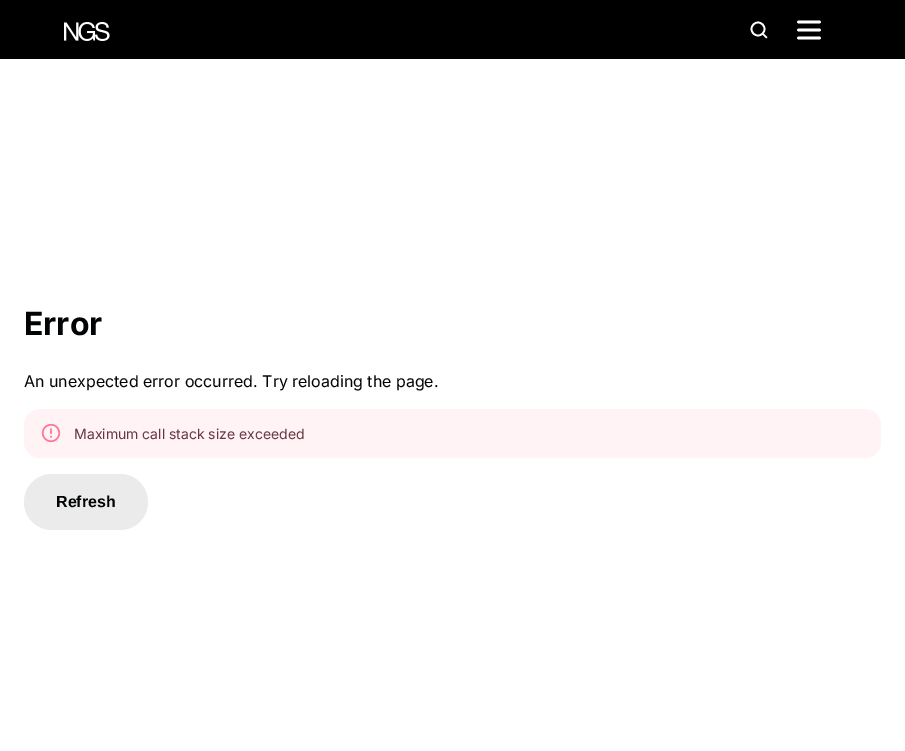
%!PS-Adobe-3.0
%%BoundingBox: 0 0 905 751
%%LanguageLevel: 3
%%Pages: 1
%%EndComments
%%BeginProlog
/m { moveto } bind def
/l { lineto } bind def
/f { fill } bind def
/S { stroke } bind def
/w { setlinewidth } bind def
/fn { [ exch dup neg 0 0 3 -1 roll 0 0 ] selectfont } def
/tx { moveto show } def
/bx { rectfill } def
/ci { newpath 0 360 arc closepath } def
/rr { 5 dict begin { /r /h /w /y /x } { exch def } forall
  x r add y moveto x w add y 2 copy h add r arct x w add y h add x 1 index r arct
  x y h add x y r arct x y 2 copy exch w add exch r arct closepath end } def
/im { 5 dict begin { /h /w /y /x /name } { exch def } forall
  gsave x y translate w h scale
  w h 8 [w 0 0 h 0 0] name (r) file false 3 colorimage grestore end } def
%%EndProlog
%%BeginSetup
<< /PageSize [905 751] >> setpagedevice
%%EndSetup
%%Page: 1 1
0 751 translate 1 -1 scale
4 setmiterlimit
1 setgray
0 0 905 751 bx
0 setgray
0 0 905 59 bx
(image0.raw) 64 22 46 19 im
1 setgray
1.7 w
758 29 6.5 ci S
1 setlinecap
1 setlinejoin
766.5 37.5 m 763 34 l S
2.7 w
798.5 30 m 819.5 30 l 798.5 22 m 819.5 22 l 798.5 38 m 819.5 38 l S
/Inter-Bold 32 fn
0.004 0.012 0.016 setrgbcolor
(Error) 24 335 tx
/Inter-Regular 16 fn
(An unexpected error occurred. Try reloading the page.) 24 387 tx
1 0.953 0.961 setrgbcolor
24 409 857 49 16 rr f
(image1.raw) 41 423 20 20 im
/Inter-Regular 14 fn
0.4 0.212 0.255 setrgbcolor
(Maximum call stack size exceeded) 74 439 tx
0.922 setgray
24 474 124 56 28 rr f
/LiberationSans-Bold 16 fn
0.004 0.012 0.016 setrgbcolor
(Refresh) 56 507 tx
showpage
%%EOF
